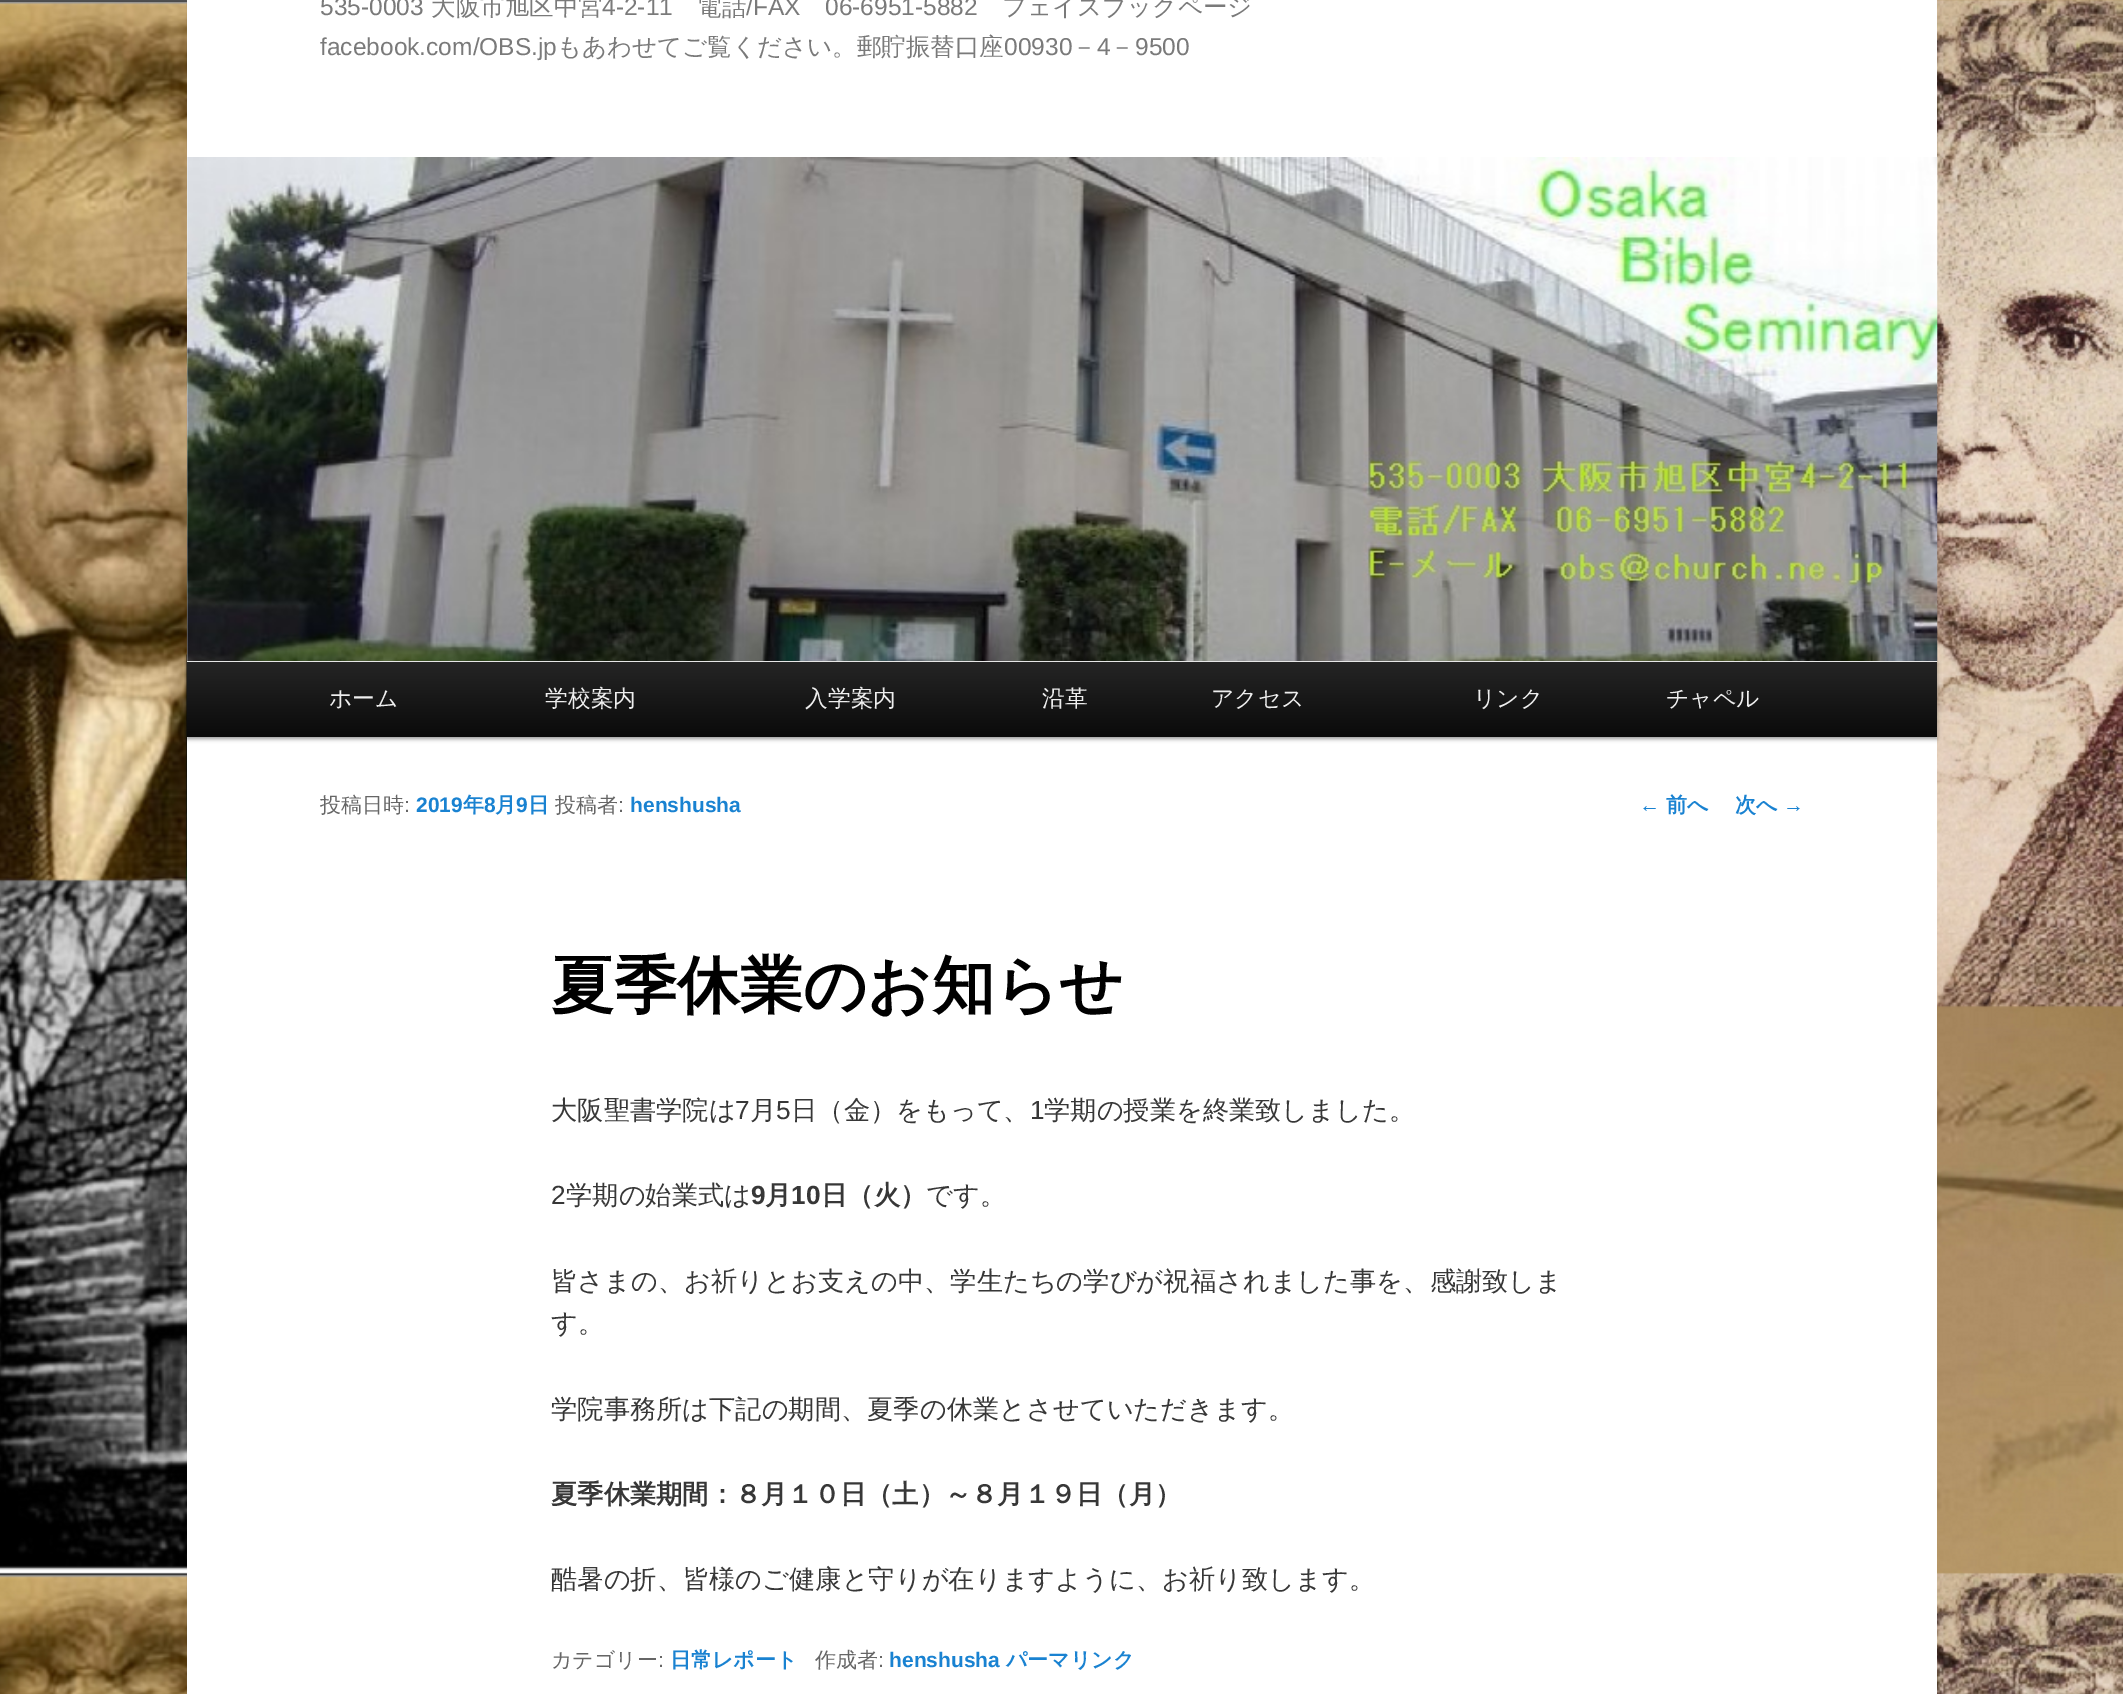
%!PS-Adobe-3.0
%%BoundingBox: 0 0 2123 1694
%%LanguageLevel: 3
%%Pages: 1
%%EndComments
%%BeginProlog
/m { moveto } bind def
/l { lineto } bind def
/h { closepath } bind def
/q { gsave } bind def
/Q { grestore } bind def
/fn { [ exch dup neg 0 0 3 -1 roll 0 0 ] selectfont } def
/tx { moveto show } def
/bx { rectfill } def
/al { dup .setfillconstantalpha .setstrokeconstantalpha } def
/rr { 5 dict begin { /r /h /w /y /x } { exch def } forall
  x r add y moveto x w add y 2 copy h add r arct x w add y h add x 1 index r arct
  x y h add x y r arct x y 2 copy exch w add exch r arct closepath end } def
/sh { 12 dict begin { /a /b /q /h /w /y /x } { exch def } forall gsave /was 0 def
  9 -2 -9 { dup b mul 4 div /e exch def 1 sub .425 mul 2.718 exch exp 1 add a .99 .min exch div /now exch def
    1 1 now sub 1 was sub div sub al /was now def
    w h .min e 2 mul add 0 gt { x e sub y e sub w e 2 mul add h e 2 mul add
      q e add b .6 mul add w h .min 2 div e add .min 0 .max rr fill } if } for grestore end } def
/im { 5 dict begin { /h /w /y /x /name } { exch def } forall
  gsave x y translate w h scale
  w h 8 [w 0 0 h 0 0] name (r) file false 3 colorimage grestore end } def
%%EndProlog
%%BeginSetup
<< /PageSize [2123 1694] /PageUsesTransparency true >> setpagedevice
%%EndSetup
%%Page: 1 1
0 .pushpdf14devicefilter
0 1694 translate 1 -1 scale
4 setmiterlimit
1 setgray
0 0 2123 1694 bx
(image0.raw) 0 0 2123 1694 im
187 0 1750 1694 bx
/LiberationSans-Regular 24.5 fn
0.478 setgray
(535-0003) 320 15 tx
/WenQuanYiZenHei-Medium 24.5 fn
(大阪市旭区中宮) 431 15 tx
/LiberationSans-Regular 24.5 fn
(4-2-11) 602 15 tx
/WenQuanYiZenHei-Medium 24.5 fn
(電話) 697 15 tx
/LiberationSans-Regular 24.5 fn
(/FAX) 746 15 tx
(06-6951-5882) 825 15 tx
/WenQuanYiZenHei-Medium 24.5 fn
(フェイスブックページ) 1002 15 tx
/LiberationSans-Regular 24.5 fn
(facebook.com/OBS.jp) 320 55 tx
/WenQuanYiZenHei-Medium 24.5 fn
(もあわせてご覧ください。郵貯振替口座) 557 55 tx
/LiberationSans-Regular 24.5 fn
(00930) 1004 55 tx
/WenQuanYiZenHei-Medium 24.5 fn
(－) 1072 55 tx
/LiberationSans-Regular 24.5 fn
(4) 1097 55 tx
/WenQuanYiZenHei-Medium 24.5 fn
(－) 1110 55 tx
/LiberationSans-Regular 24.5 fn
(9500) 1135 55 tx
0 setgray
187 663 1750 76 0 2 0.4 sh
(image1.raw) 187 157 1751 504 im
q 187 662 m 1937 662 l 1937 737 l 187 737 l h clip newpath
<< /ShadingType 2 /ColorSpace /DeviceRGB /Coords [1062 661 1062 737] /Extend [true true] /Function << /FunctionType 2 /Domain [0 1] /C0 [0.145 0.145 0.145] /C1 [0.039 0.039 0.039] /N 1 >> >> shfill Q
/WenQuanYiZenHei-Medium 22.75 fn
0.933 setgray
(ホーム) 329 706 tx
(学校案内) 545 706 tx
(入学案内) 805 706 tx
(沿革) 1042 706 tx
(アクセス) 1211 706 tx
(リンク) 1473 706 tx
(チャペル) 1666 706 tx
/WenQuanYiZenHei-Medium 21 fn
0.4 setgray
(投稿日時) 320 812 tx
/LiberationSans-Regular 21 fn
(:) 404 812 tx
/LiberationSans-Bold 21 fn
0.098 0.51 0.82 setrgbcolor
(2019) 416 812 tx
/WenQuanYiZenHei-Bold 21 fn
(年) 463 812 tx
/LiberationSans-Bold 21 fn
(8) 484 812 tx
/WenQuanYiZenHei-Bold 21 fn
(月) 495 812 tx
/LiberationSans-Bold 21 fn
(9) 516 812 tx
/WenQuanYiZenHei-Bold 21 fn
(日) 528 812 tx
/WenQuanYiZenHei-Medium 21 fn
0.4 setgray
(投稿者) 555 812 tx
/LiberationSans-Regular 21 fn
(:) 618 812 tx
/LiberationSans-Bold 21 fn
0.098 0.51 0.82 setrgbcolor
(henshusha) 630 812 tx
/WenQuanYiZenHei-Bold 63 fn
0 setgray
(夏季休業のお知らせ) 551 1007 tx
/WenQuanYiZenHei-Medium 26.25 fn
0.216 setgray
(大阪聖書学院は) 551 1119 tx
/LiberationSans-Regular 26.25 fn
(7) 735 1119 tx
/WenQuanYiZenHei-Medium 26.25 fn
(月) 750 1119 tx
/LiberationSans-Regular 26.25 fn
(5) 776 1119 tx
/WenQuanYiZenHei-Medium 26.25 fn
(日（金）をもって、) 791 1119 tx
/LiberationSans-Regular 26.25 fn
(1) 1030 1119 tx
/WenQuanYiZenHei-Medium 26.25 fn
(学期の授業を終業致しました。) 1044 1119 tx
/LiberationSans-Regular 26.25 fn
(2) 551 1204 tx
/WenQuanYiZenHei-Medium 26.25 fn
(学期の始業式は) 566 1204 tx
/LiberationSans-Bold 26.25 fn
(9) 751 1204 tx
/WenQuanYiZenHei-Bold 26.25 fn
(月) 765 1204 tx
/LiberationSans-Bold 26.25 fn
(10) 791 1204 tx
/WenQuanYiZenHei-Bold 26.25 fn
(日（火）) 821 1204 tx
/WenQuanYiZenHei-Medium 26.25 fn
(です。) 926 1204 tx
(皆さまの、お祈りとお支えの中、学生たちの学びが祝福されました事を、感謝致しま) 551 1290 tx
(す。) 551 1332 tx
(学院事務所は下記の期間、夏季の休業とさせていただきます。) 551 1418 tx
/WenQuanYiZenHei-Bold 26.25 fn
(夏季休業期間：８月１０日（土）～８月１９日（月）) 551 1503 tx
/WenQuanYiZenHei-Medium 26.25 fn
(酷暑の折、皆様のご健康と守りが在りますように、お祈り致します。) 551 1588 tx
/WenQuanYiZenHei-Medium 21 fn
0.4 setgray
(カテゴリー) 551 1667 tx
/LiberationSans-Regular 21 fn
(:) 658 1667 tx
/WenQuanYiZenHei-Bold 21 fn
0.098 0.51 0.82 setrgbcolor
(日常レポート) 670 1667 tx
/WenQuanYiZenHei-Medium 21 fn
0.4 setgray
(作成者) 815 1667 tx
/LiberationSans-Regular 21 fn
(:) 878 1667 tx
/LiberationSans-Bold 21 fn
0.098 0.51 0.82 setrgbcolor
(henshusha) 889 1667 tx
/WenQuanYiZenHei-Bold 21 fn
(パーマリンク) 1006 1667 tx
/LiberationSans-Regular 21 fn
(←) 1639 812 tx
/WenQuanYiZenHei-Bold 21 fn
(前へ) 1666 812 tx
(次へ) 1735 812 tx
/LiberationSans-Regular 21 fn
(→) 1783 812 tx
.poppdf14devicefilter showpage
%%EOF
